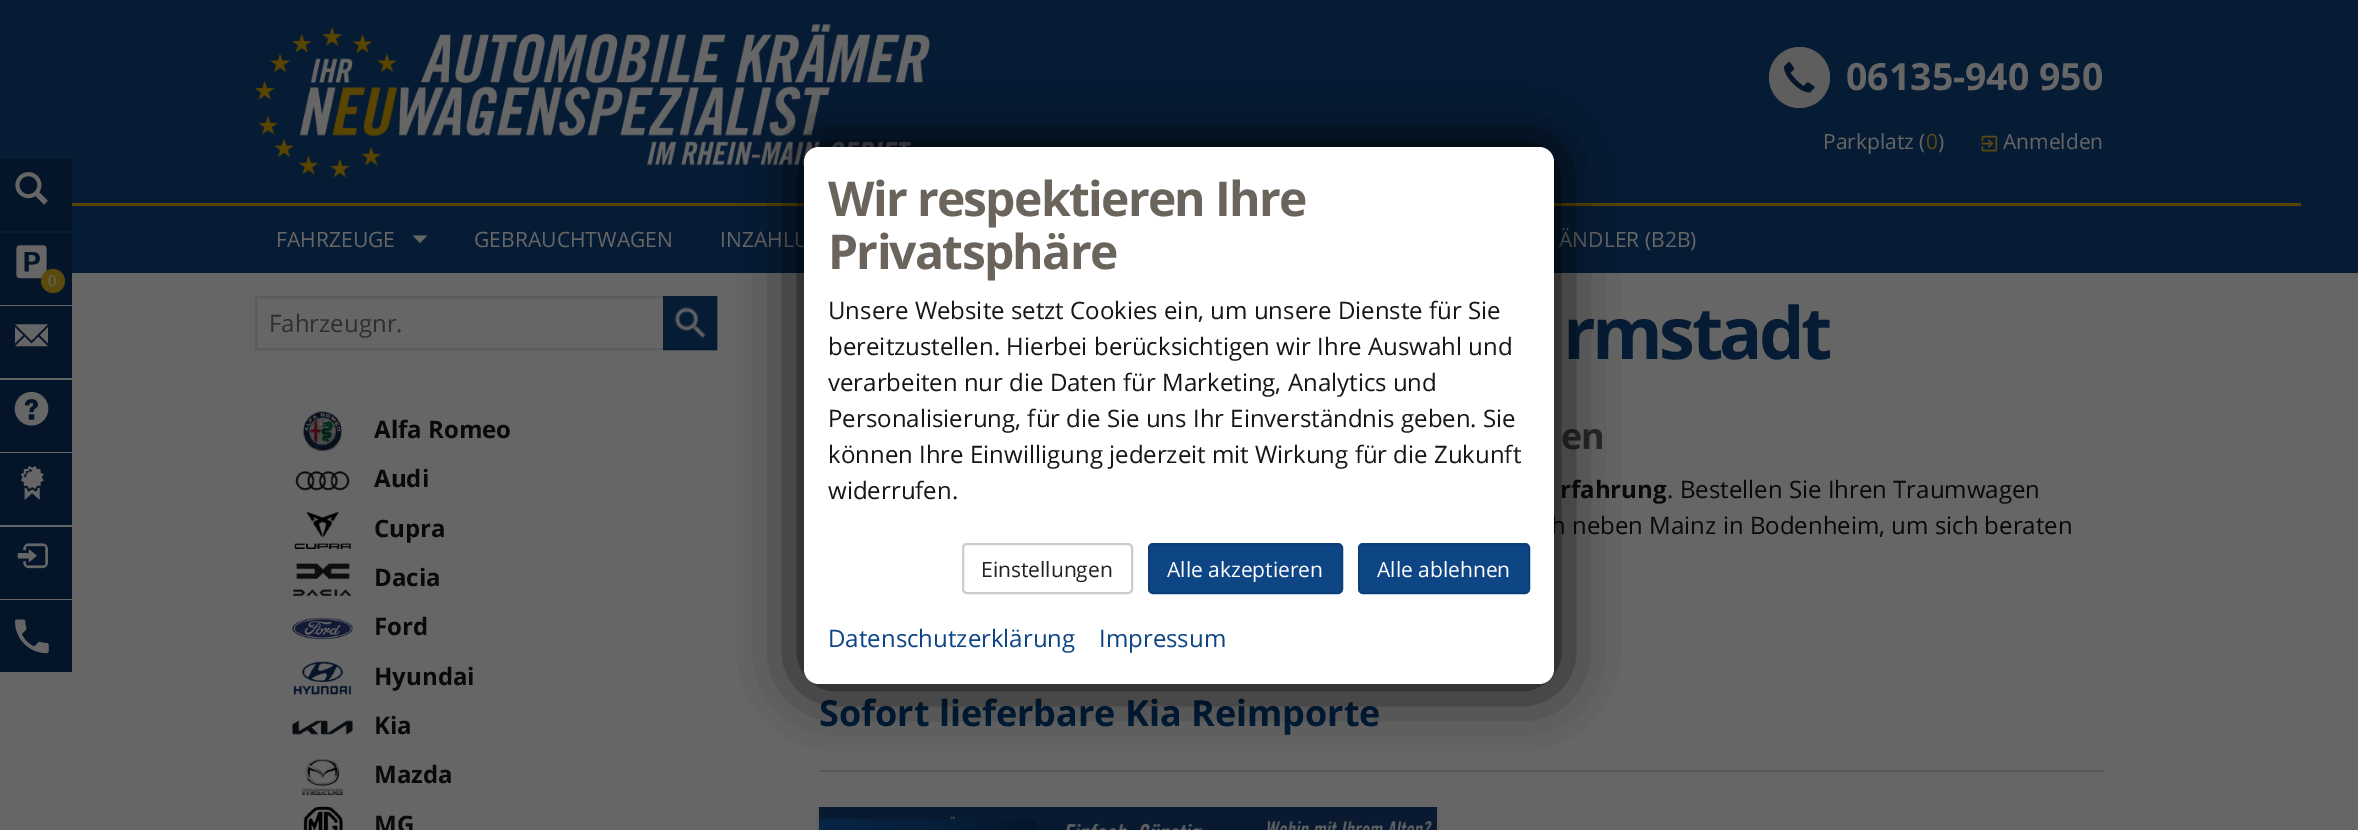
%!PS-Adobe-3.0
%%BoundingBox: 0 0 2358 830
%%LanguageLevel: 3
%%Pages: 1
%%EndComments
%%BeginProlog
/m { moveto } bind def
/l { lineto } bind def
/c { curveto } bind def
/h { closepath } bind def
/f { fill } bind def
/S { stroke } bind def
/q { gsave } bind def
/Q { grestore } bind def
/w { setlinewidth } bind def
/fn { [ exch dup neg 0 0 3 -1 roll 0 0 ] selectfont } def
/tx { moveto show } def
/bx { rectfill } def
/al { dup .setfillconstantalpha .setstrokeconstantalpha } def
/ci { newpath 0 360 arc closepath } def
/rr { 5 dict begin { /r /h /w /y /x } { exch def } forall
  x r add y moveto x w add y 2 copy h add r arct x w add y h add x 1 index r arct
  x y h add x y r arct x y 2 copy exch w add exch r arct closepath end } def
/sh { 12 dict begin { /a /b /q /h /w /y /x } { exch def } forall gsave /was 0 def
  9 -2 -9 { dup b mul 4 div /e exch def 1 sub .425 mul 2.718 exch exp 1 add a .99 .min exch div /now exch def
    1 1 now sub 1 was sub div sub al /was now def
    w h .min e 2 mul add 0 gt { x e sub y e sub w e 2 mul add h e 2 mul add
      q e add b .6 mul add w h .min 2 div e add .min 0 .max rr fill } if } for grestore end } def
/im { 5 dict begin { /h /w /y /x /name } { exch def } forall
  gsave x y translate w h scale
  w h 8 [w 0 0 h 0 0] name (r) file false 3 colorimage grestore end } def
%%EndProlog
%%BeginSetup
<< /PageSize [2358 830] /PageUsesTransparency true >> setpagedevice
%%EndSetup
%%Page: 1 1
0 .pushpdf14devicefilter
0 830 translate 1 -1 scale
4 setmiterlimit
0.4 setgray
0 0 2358 830 bx
0.024 0.11 0.208 setrgbcolor
0 0 2358 273 bx
(image0.raw) 255 24 675 154 im
0.369 setgray
1799.5 77.5 30.5 ci f
(image1.raw) 1783 62 32 31 im
/OpenSans-Bold 37.5 fn
0.4 setgray
(06135-940 950) 1846 90 tx
/OpenSans-Regular 21 fn
(Parkplatz \() 1823 149 tx
0.353 0.29 0.055 setrgbcolor
(0) 1926 149 tx
0.4 setgray
(\)) 1938 149 tx
(image2.raw) 1981 135 17 17 im
(Anmelden) 2003 149 tx
0.02 0.082 0.161 setrgbcolor
0 159 72 72 bx
(image3.raw) 15 172 33 33 im
0 233 72 72 bx
(image4.raw) 16 245 31 34 im
0.353 0.29 0.055 setrgbcolor
53 281 12 ci f
/OpenSans-Regular 15 fn
0.4 setgray
(0) 48 286 tx
0.02 0.082 0.161 setrgbcolor
0 306 72 72 bx
(image5.raw) 15 324 33 23 im
0 380 72 72 bx
(image6.raw) 14 391 35 35 im
0 453 72 72 bx
(image7.raw) 20 466 24 34 im
0 527 72 72 bx
(image8.raw) 17 543 31 26 im
0 600 72 72 bx
(image9.raw) 15 619 34 35 im
0.345 0.271 0 setrgbcolor
72 203 2229 3 bx
/OpenSans-Regular 21.1 fn
0.4 setgray
(FAHRZEUGE) 276 247 tx
412.5 235.5 m 427.5 235.5 l 420 243 l h f
(GEBRAUCHTWAGEN) 474 247 tx
(INZAHLU) 720 247 tx
(ÄNDLER \(B2B\)) 1559 247 tx
0.357 setgray
2 w
256 297 460 52 rectstroke
/OpenSans-Regular 24 fn
0.184 setgray
(Fahrzeugnr.) 269 332 tx
0.024 0.11 0.208 setrgbcolor
665 298 50 50 bx
(image10.raw) 674 307 32 31 im
0.02 0.098 0.188 setrgbcolor
664 297 52 52 rectstroke
(image11.raw) 302 411 41 41 im
/OpenSans-Bold 24 fn
0.035 setgray
(Alfa Romeo) 374 438 tx
(image12.raw) 295 471 55 20 im
(Audi) 374 487 tx
(image13.raw) 294 511 57 39 im
(Cupra) 374 537 tx
(image14.raw) 293 563 59 34 im
(Dacia) 374 586 tx
(image15.raw) 292 618 61 22 im
(Ford) 374 635 tx
(image16.raw) 293 661 58 34 im
(Hyundai) 374 685 tx
(image17.raw) 292 720 61 15 im
(Kia) 374 734 tx
(image18.raw) 302 759 41 37 im
(Mazda) 374 783 tx
(image19.raw) 303 806 40 24 im
(MG) 374 833 tx
/OpenSans-Bold 72 fn
0.024 0.11 0.208 setrgbcolor
1563 359 m -3.5 0 (rmstadt) ashow
/OpenSans-Bold 36 fn
0.165 0.157 0.145 setrgbcolor
1561 449 m -1.7 0 (en) ashow
/OpenSans-Bold 24 fn
0.035 setgray
(rfahrung) 1560 498 tx
/OpenSans-Regular 24 fn
(. Bestellen Sie Ihren Traumwagen) 1667 498 tx
(h neben Mainz in Bodenheim, um sich beraten) 1551 534 tx
/OpenSans-Bold 36 fn
0 0.11 0.216 setrgbcolor
(Sofort lieferbare Kia Reimporte) 819 726 tx
0.345 setgray
819 770 1284 2 bx
0 setgray
819 810 618 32 0 4 0.1 sh
(image20.raw) 819 807 618 23 im
q 819 819 m 1031 819 l 1034.5 819 1037 821.5 1037 825 c 1037 830 l 1037 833.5 1034.5 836 1031 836 c 819 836 l h clip newpath
<< /ShadingType 2 /ColorSpace /DeviceRGB /Coords [819 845 1037 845] /Extend [true true] /Function << /FunctionType 3 /Domain [0 1] /Functions [<< /FunctionType 2 /Domain [0 1] /C0 [0.027 0.145 0.275] /C1 [0.024 0.11 0.208] /N 1 >> << /FunctionType 2 /Domain [0 1] /C0 [0.024 0.11 0.208] /C1 [0.016 0.082 0.161] /N 1 >>] /Bounds [0.7] /Encode [0 1 0 1] >> >> shfill Q
804 147 750 537 15 30 1 sh
1 setgray
804 147 750 537 15 rr f
/OpenSans-Bold 48 fn
0.416 0.392 0.365 setrgbcolor
828 216 m -1.7 0 (Wir respektieren Ihre) ashow
828 269 m -1.7 0 (Privatsphäre) ashow
/OpenSans-Regular 24 fn
0.09 setgray
(Unsere Website setzt Cookies ein, um unsere Dienste für Sie) 828 319 tx
(bereitzustellen. Hierbei berücksichtigen wir Ihre Auswahl und) 828 355 tx
(verarbeiten nur die Daten für Marketing, Analytics und) 828 391 tx
(Personalisierung, für die Sie uns Ihr Einverständnis geben. Sie) 828 427 tx
(können Ihre Einwilligung jederzeit mit Wirkung für die Zukunft) 828 463 tx
(widerrufen.) 828 499 tx
0.8 setgray
963 544 169 49 4 rr S
/OpenSans-Regular 21 fn
0.133 setgray
(Einstellungen) 981 577 tx
0.055 0.271 0.522 setrgbcolor
1149 544 193 49 4 rr q f Q
0.047 0.243 0.471 setrgbcolor
S
1 setgray
(Alle akzeptieren) 1167 577 tx
0.055 0.271 0.522 setrgbcolor
1359 544 170 49 4 rr q f Q
0.047 0.243 0.471 setrgbcolor
S
1 setgray
(Alle ablehnen) 1377 577 tx
/OpenSans-Regular 24 fn
0.055 0.271 0.522 setrgbcolor
(Datenschutzerklärung) 828 647 tx
(Impressum) 1099 647 tx
.poppdf14devicefilter showpage
%%EOF
